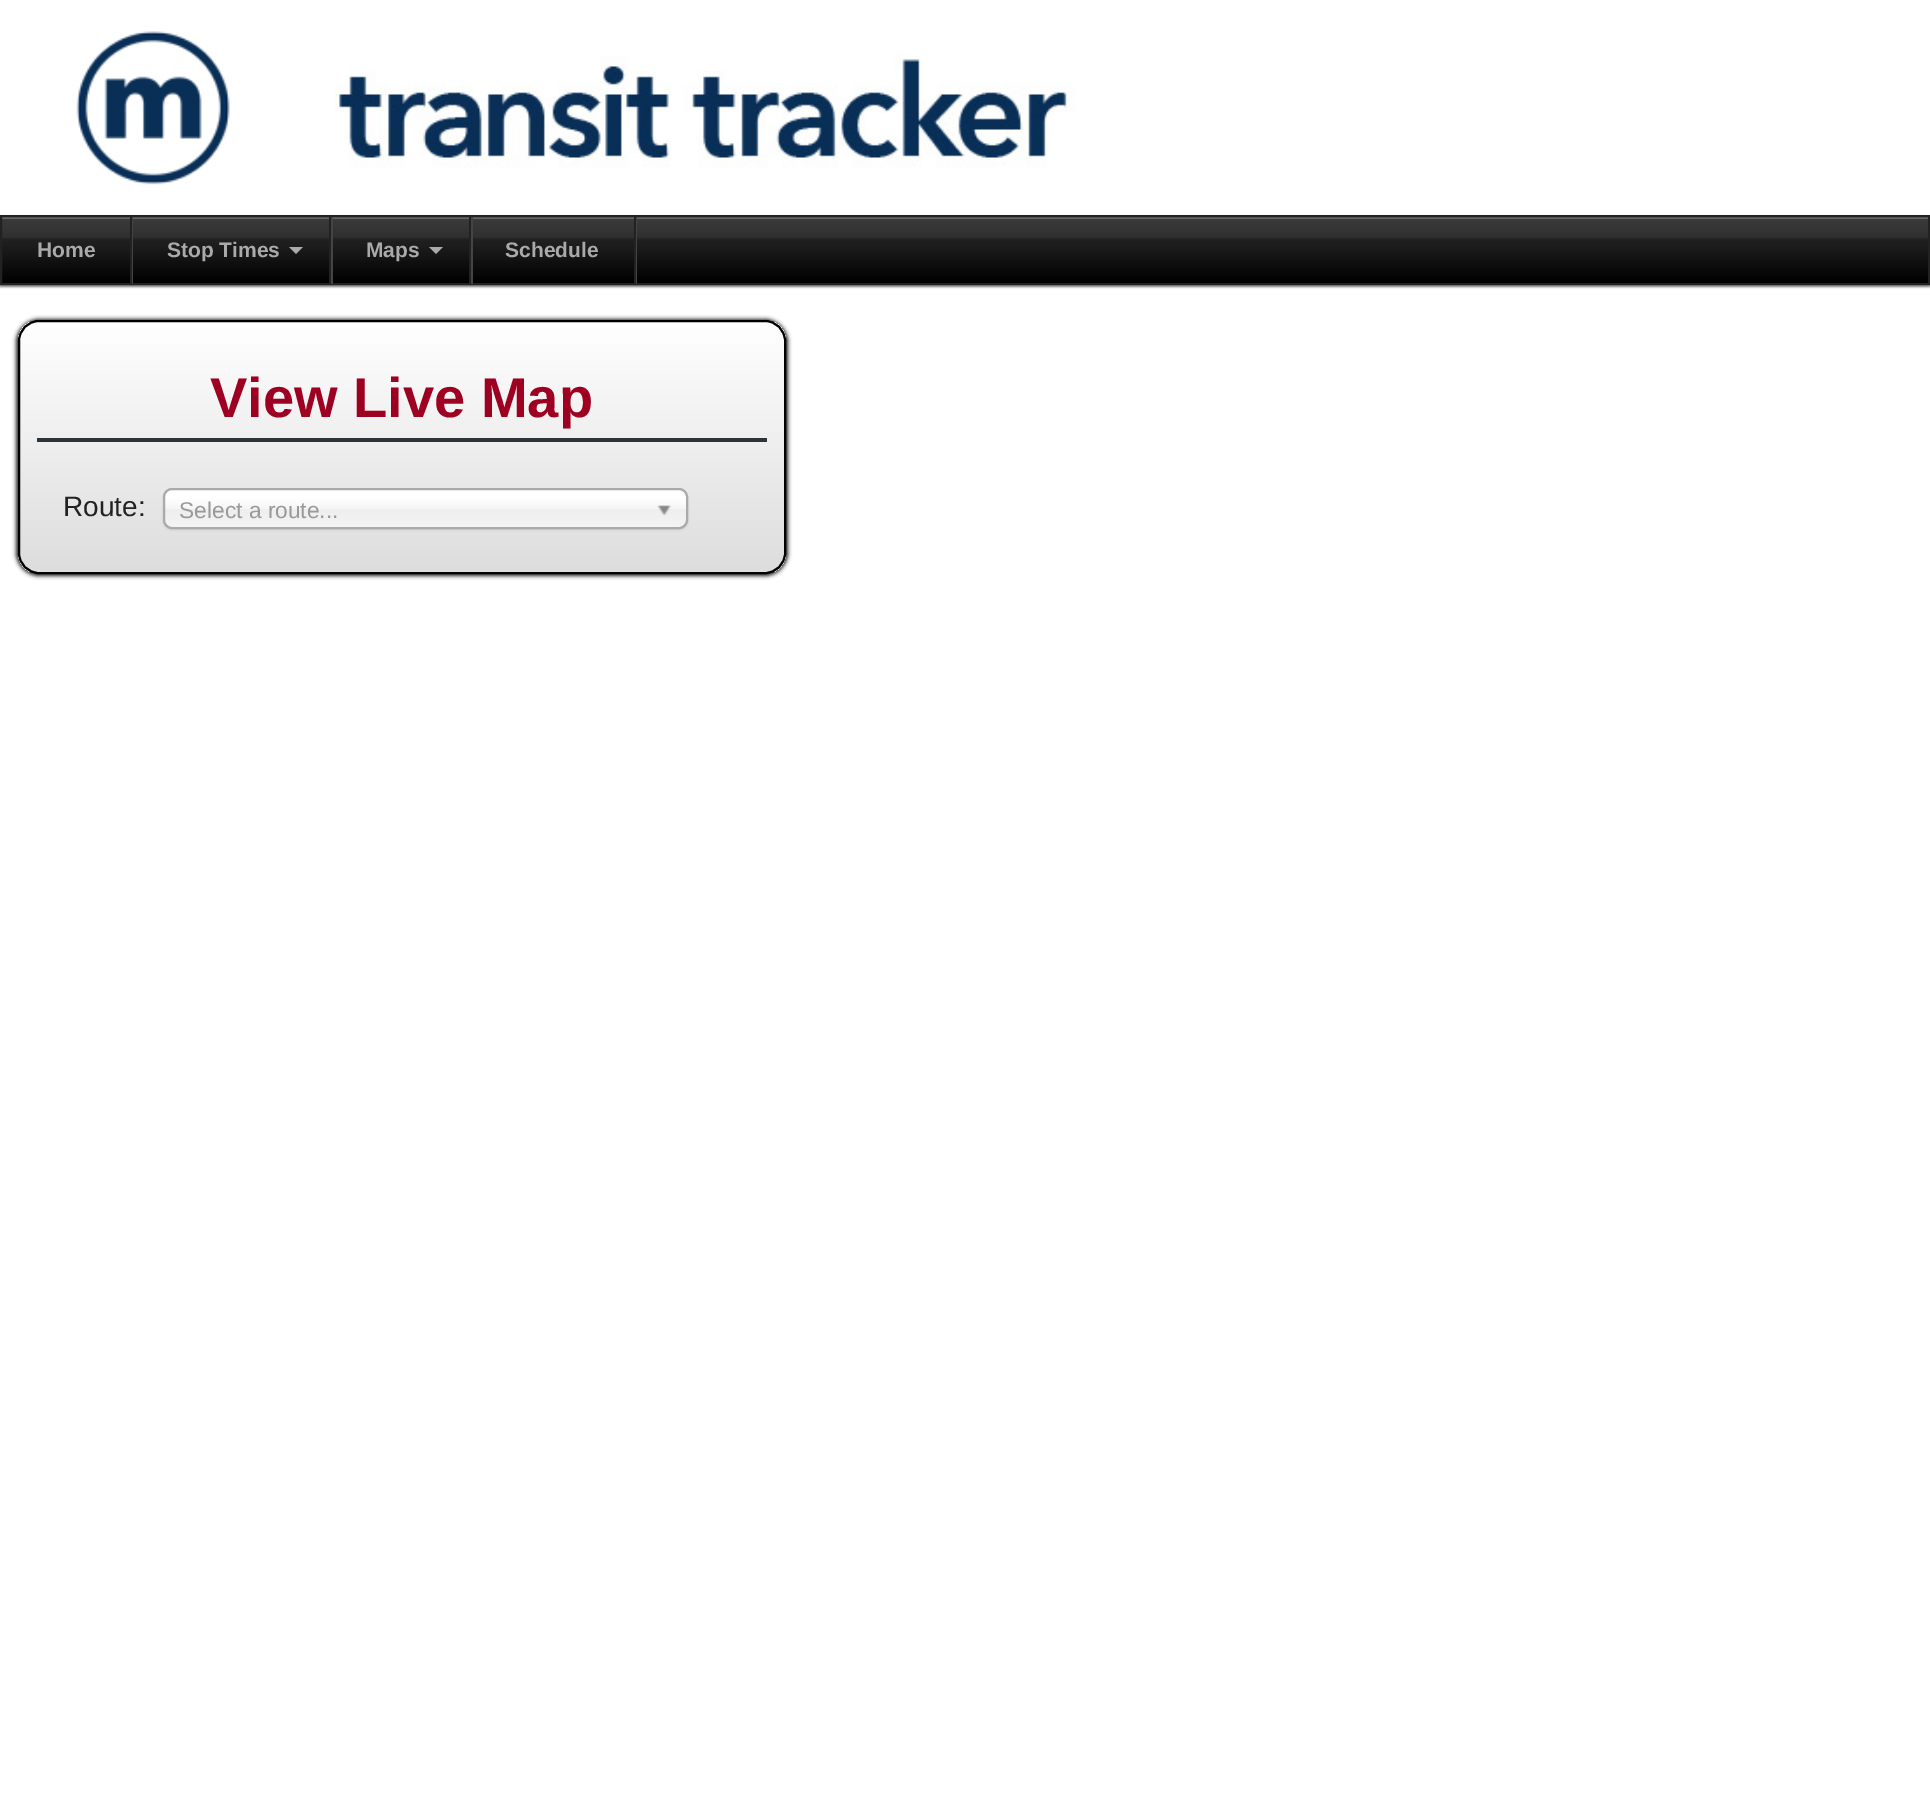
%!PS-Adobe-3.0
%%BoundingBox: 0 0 1930 1804
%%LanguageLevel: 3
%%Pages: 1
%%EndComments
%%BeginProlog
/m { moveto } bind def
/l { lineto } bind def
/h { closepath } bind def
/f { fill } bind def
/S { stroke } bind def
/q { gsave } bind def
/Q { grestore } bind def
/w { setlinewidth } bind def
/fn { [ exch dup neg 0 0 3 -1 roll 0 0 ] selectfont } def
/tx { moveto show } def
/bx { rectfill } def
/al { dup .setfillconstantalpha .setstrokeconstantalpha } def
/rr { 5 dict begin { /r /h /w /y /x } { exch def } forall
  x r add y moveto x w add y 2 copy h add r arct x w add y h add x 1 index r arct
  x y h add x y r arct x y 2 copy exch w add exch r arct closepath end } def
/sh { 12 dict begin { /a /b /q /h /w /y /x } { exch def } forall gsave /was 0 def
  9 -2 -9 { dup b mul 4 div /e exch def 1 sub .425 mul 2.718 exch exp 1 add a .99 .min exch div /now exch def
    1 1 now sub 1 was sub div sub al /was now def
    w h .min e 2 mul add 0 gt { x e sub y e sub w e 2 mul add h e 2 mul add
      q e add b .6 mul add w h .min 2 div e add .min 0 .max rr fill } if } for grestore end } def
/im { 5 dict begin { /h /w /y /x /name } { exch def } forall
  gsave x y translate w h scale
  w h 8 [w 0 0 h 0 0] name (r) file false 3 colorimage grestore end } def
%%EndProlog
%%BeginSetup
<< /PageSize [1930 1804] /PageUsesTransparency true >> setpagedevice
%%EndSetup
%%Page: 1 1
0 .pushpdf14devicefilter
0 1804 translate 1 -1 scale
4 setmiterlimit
1 setgray
0 0 1930 1804 bx
(image0.raw) 76 31 154 154 im
(image1.raw) 334 56 742 112 im
0.467 setgray
0 217 1930 70 0 1 1 sh
(image2.raw) 0 219 1930 67 im
0.4 setgray
2 217 1927 2 bx
0.133 setgray
2 w
1 216 1928 68 rectstroke
0.267 setgray
4 284 m 133 284 l 133 217 l 131 217 l 131 284 l h f
0.133 setgray
130 217 2 67 bx
/LiberationSans-Bold 21 fn
0.667 setgray
(Home) 37 257 tx
0.267 setgray
133 284 m 333 284 l 333 217 l 331 217 l 331 284 l h f
0.133 setgray
329 217 2 67 bx
0.667 setgray
(Stop Times) 167 257 tx
289 247 m 303 247 l 296 254 l h f
0.267 setgray
333 284 m 473 284 l 473 217 l 471 217 l 471 284 l h f
0.133 setgray
469 217 2 67 bx
0.667 setgray
(Maps) 366 257 tx
429 247 m 443 247 l 436 254 l h f
0.267 setgray
473 284 m 637 284 l 637 217 l 635 217 l 635 284 l h f
0.133 setgray
634 217 2 67 bx
0.667 setgray
(Schedule) 505 257 tx
0.133 setgray
16 319 772 257 23 2 1 sh
q
18 320 768 254 21 rr clip newpath
q 18 322 m 786 322 l 786 572 l 18 572 l h clip newpath
<< /ShadingType 2 /ColorSpace /DeviceRGB /Coords [402 322 402 572] /Extend [true true] /Function << /FunctionType 2 /Domain [0 1] /C0 [1 1 1] /C1 [0.867 0.867 0.867] /N 1 >> >> shfill Q
Q
0 setgray
19 321 766 252 20 rr S
0.176 0.204 0.216 setrgbcolor
37 438 730 4 bx
/LiberationSans-Bold 56 fn
0.616 0 0.125 setrgbcolor
(View Live Map) 210 417 tx
/LiberationSans-Regular 28 fn
0.133 setgray
(Route:) 63 516 tx
0 setgray
163 490 525 40 9 1 0.1 sh
q 165 490 521 37 7 rr clip newpath
<< /ShadingType 2 /ColorSpace /DeviceRGB /Coords [425 490 425 527] /Extend [true true] /Function << /FunctionType 3 /Domain [0 1] /Functions [<< /FunctionType 2 /Domain [0 1] /C0 [1 1 1] /C1 [1 1 1] /N 1 >> << /FunctionType 2 /Domain [0 1] /C0 [1 1 1] /C1 [0.965 0.965 0.965] /N 1 >> << /FunctionType 2 /Domain [0 1] /C0 [0.965 0.965 0.965] /C1 [0.933 0.933 0.933] /N 1 >> << /FunctionType 2 /Domain [0 1] /C0 [0.933 0.933 0.933] /C1 [0.957 0.957 0.957] /N 1 >>] /Bounds [0.2 0.5 0.52] /Encode [0 1 0 1 0 1 0 1] >> >> shfill Q
0.667 setgray
164 489 523 39 8 rr S
/LiberationSans-Regular 22.75 fn
0.6 setgray
(Select a route...) 179 518 tx
(image3.raw) 657 505 14 11 im
.poppdf14devicefilter showpage
%%EOF
